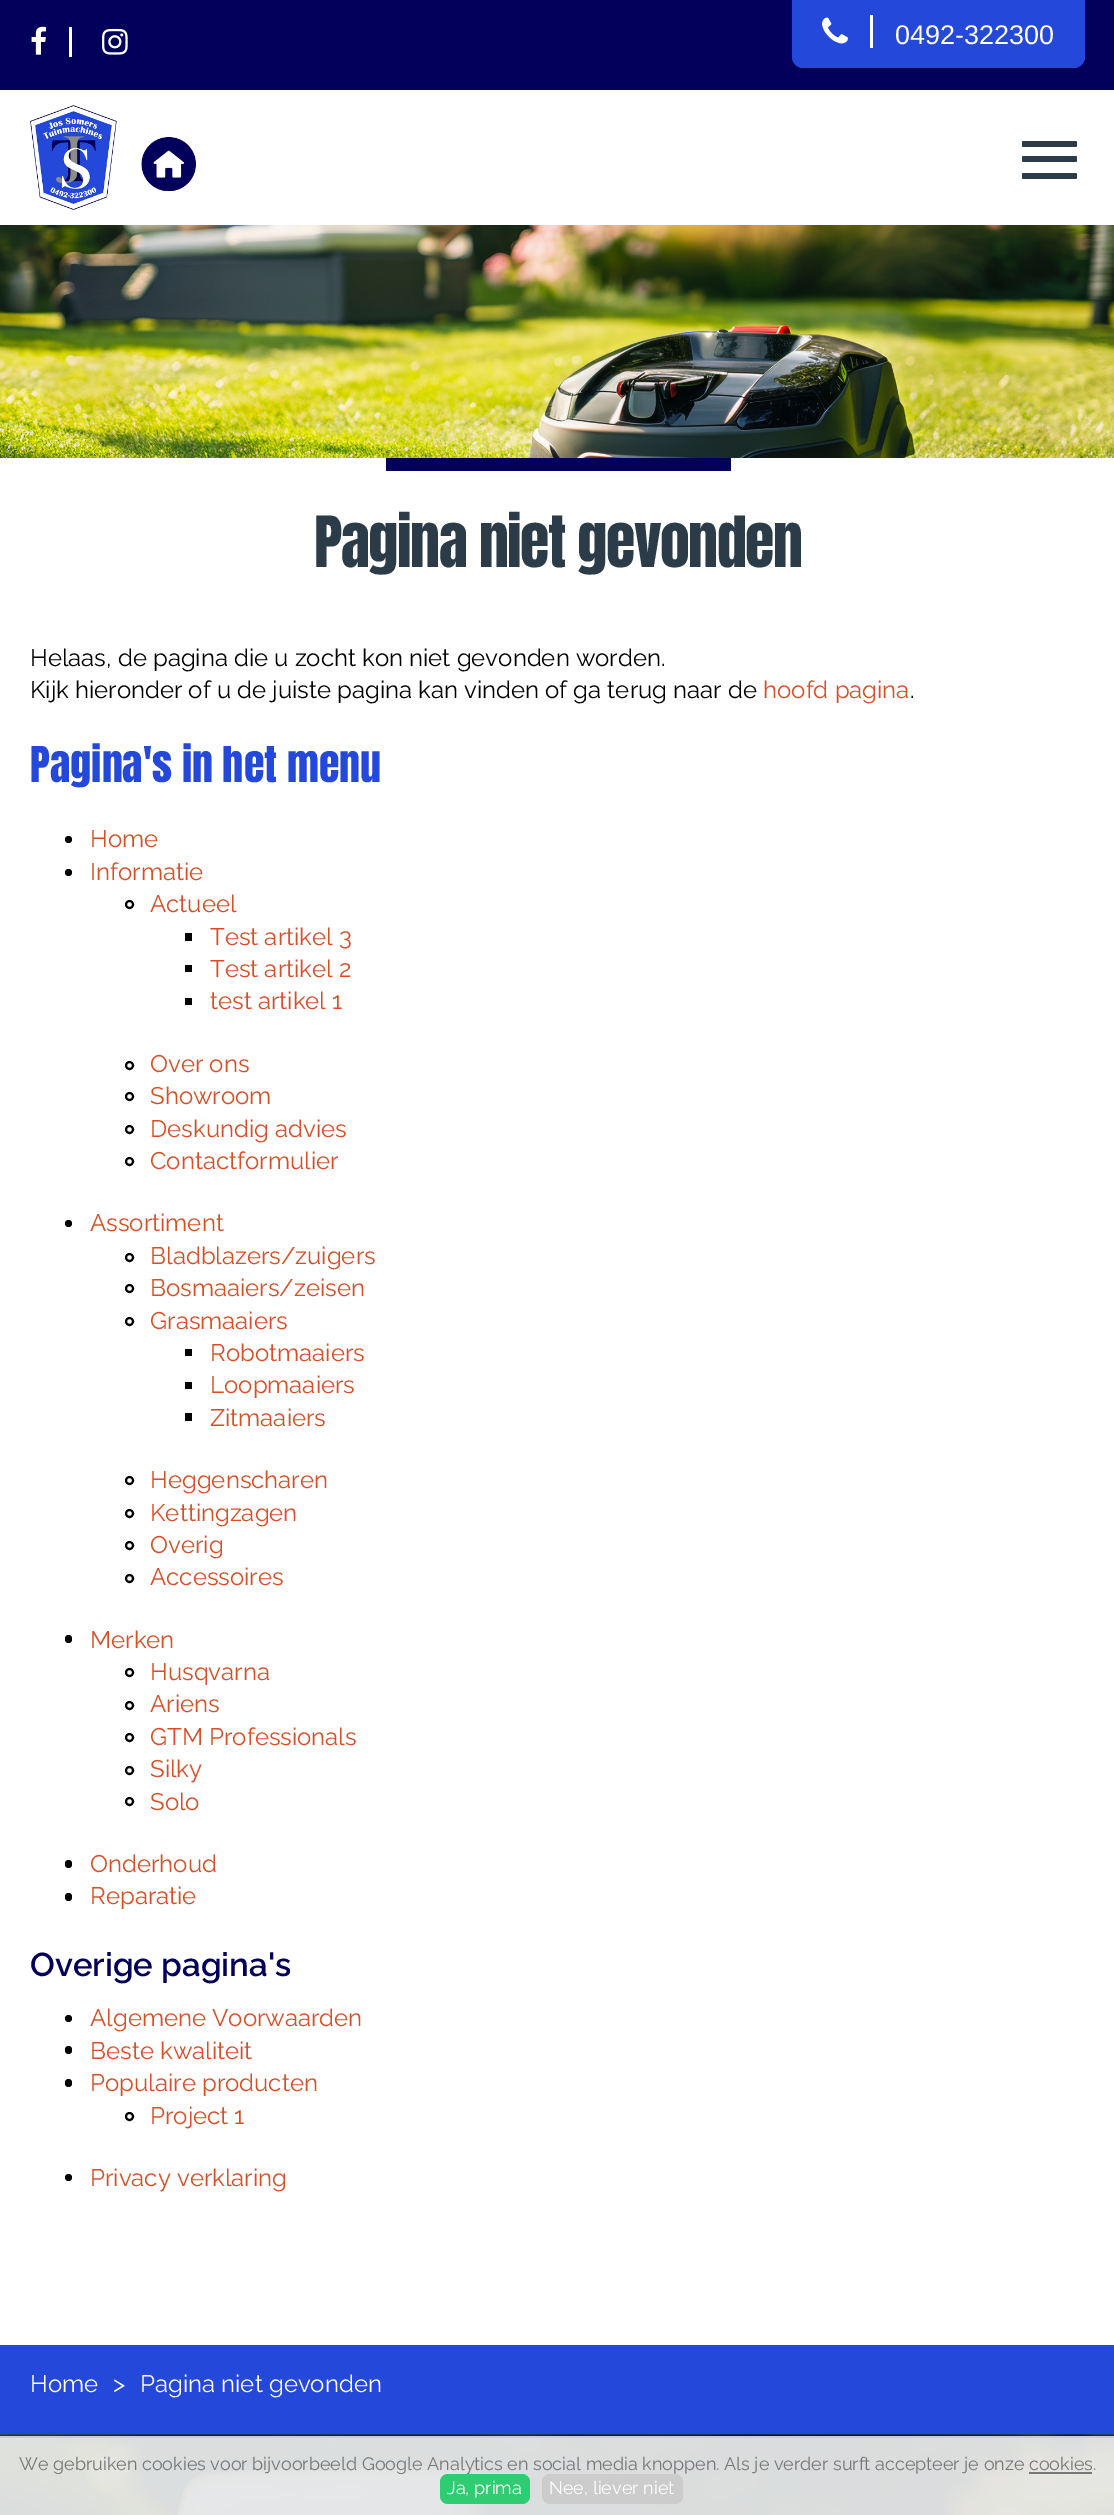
%!PS-Adobe-3.0
%%BoundingBox: 0 0 1114 2515
%%LanguageLevel: 3
%%Pages: 1
%%EndComments
%%BeginProlog
/m { moveto } bind def
/l { lineto } bind def
/c { curveto } bind def
/h { closepath } bind def
/f { fill } bind def
/S { stroke } bind def
/w { setlinewidth } bind def
/fn { [ exch dup neg 0 0 3 -1 roll 0 0 ] selectfont } def
/tx { moveto show } def
/bx { rectfill } def
/ci { newpath 0 360 arc closepath } def
/rr { 5 dict begin { /r /h /w /y /x } { exch def } forall
  x r add y moveto x w add y 2 copy h add r arct x w add y h add x 1 index r arct
  x y h add x y r arct x y 2 copy exch w add exch r arct closepath end } def
/im { 5 dict begin { /h /w /y /x /name } { exch def } forall
  gsave x y translate w h scale
  w h 8 [w 0 0 h 0 0] name (r) file false 3 colorimage grestore end } def
%%EndProlog
%%BeginSetup
<< /PageSize [1114 2515] >> setpagedevice
%%EndSetup
%%Page: 1 1
0 2515 translate 1 -1 scale
4 setmiterlimit
1 setgray
0 0 1114 2515 bx
(image0.raw) 0 225 1114 233 im
0.008 0 0.353 setrgbcolor
0 0 1114 90 bx
1 setgray
69 27 3 30 bx
(image1.raw) 31 26 16 29 im
(image2.raw) 102 28 26 27 im
0.141 0.282 0.855 setrgbcolor
792 0 m 1085 0 l 1085 57 l 1085 63 1080 68 1074 68 c 803 68 l 797 68 792 63 792 57 c h f
1 setgray
870 15 3 33 bx
(image3.raw) 822 17 26 27 im
/LiberationSans-Regular 27 fn
(0492-322300) 895 44 tx
(image4.raw) 30 105 166 105 im
0.169 0.231 0.282 setrgbcolor
1022 141 55 6 1.5 rr f
1022 156 55 6 1.5 rr f
1022 173 55 6 1.5 rr f
0.008 0 0.353 setrgbcolor
386 458 345 13 bx
/Anton-Regular 60 fn
0.169 0.231 0.282 setrgbcolor
314 567 m -1.5 0 (Pagina niet gevonden) ashow
/Raleway-Regular 24 fn
0 setgray
(Helaas, de pagina die u zocht kon niet gevonden worden.) 30 666 tx
(Kijk hieronder of u de juiste pagina kan vinden of ga terug naar de) 30 698 tx
0.851 0.306 0.145 setrgbcolor
(hoofd pagina) 763 698 tx
0 setgray
(.) 910 698 tx
/Anton-Regular 42 fn
0.141 0.282 0.855 setrgbcolor
(Pagina's in het menu) 30 782 tx
0 setgray
68.5 839.5 3.5 ci f
/Raleway-Regular 24 fn
0.851 0.306 0.145 setrgbcolor
(Home) 90 847 tx
0 setgray
68.5 872.5 3.5 ci f
0.851 0.306 0.145 setrgbcolor
(Informatie) 90 880 tx
0 setgray
2 w
129.5 904.5 3.5 ci S
0.851 0.306 0.145 setrgbcolor
(Actueel) 150 912 tx
0 setgray
185 933 7 8 bx
0.851 0.306 0.145 setrgbcolor
(Test artikel 3) 210 945 tx
0 setgray
185 965 7 7 bx
0.851 0.306 0.145 setrgbcolor
(Test artikel 2) 210 977 tx
0 setgray
185 998 7 7 bx
0.851 0.306 0.145 setrgbcolor
(test artikel 1) 210 1009 tx
0 setgray
129.5 1065.5 3.5 ci S
0.851 0.306 0.145 setrgbcolor
(Over ons) 150 1072 tx
0 setgray
129.5 1096.5 3.5 ci S
0.851 0.306 0.145 setrgbcolor
(Showroom) 150 1104 tx
0 setgray
129.5 1129.5 3.5 ci S
0.851 0.306 0.145 setrgbcolor
(Deskundig advies) 150 1137 tx
0 setgray
129.5 1161.5 3.5 ci S
0.851 0.306 0.145 setrgbcolor
(Contactformulier) 150 1169 tx
0 setgray
68.5 1223.5 3.5 ci f
0.851 0.306 0.145 setrgbcolor
(Assortiment) 90 1231 tx
0 setgray
129.5 1257.5 3.5 ci S
0.851 0.306 0.145 setrgbcolor
(Bladblazers/zuigers) 150 1264 tx
0 setgray
129.5 1288.5 3.5 ci S
0.851 0.306 0.145 setrgbcolor
(Bosmaaiers/zeisen) 150 1296 tx
0 setgray
129.5 1321.5 3.5 ci S
0.851 0.306 0.145 setrgbcolor
(Grasmaaiers) 150 1329 tx
0 setgray
185 1349 7 7 bx
0.851 0.306 0.145 setrgbcolor
(Robotmaaiers) 210 1361 tx
0 setgray
185 1382 7 7 bx
0.851 0.306 0.145 setrgbcolor
(Loopmaaiers) 210 1393 tx
0 setgray
185 1413 7 8 bx
0.851 0.306 0.145 setrgbcolor
(Zitmaaiers) 210 1426 tx
0 setgray
129.5 1480.5 3.5 ci S
0.851 0.306 0.145 setrgbcolor
(Heggenscharen) 150 1488 tx
0 setgray
129.5 1513.5 3.5 ci S
0.851 0.306 0.145 setrgbcolor
(Kettingzagen) 150 1521 tx
0 setgray
129.5 1545.5 3.5 ci S
0.851 0.306 0.145 setrgbcolor
(Overig) 150 1553 tx
0 setgray
129.5 1578.5 3.5 ci S
0.851 0.306 0.145 setrgbcolor
(Accessoires) 150 1585 tx
0 setgray
65 1635 7 8 3.5 rr f
0.851 0.306 0.145 setrgbcolor
(Merken) 90 1648 tx
0 setgray
129.5 1672.5 3.5 ci S
0.851 0.306 0.145 setrgbcolor
(Husqvarna) 150 1680 tx
0 setgray
129.5 1705.5 3.5 ci S
0.851 0.306 0.145 setrgbcolor
(Ariens) 150 1712 tx
0 setgray
129.5 1737.5 3.5 ci S
0.851 0.306 0.145 setrgbcolor
(GTM Professionals) 150 1745 tx
0 setgray
129.5 1770.5 3.5 ci S
0.851 0.306 0.145 setrgbcolor
(Silky) 150 1777 tx
0 setgray
129.5 1801.5 3.5 ci S
0.851 0.306 0.145 setrgbcolor
(Solo) 150 1810 tx
0 setgray
65 1860 7 8 3.5 rr f
0.851 0.306 0.145 setrgbcolor
(Onderhoud) 90 1872 tx
0 setgray
65 1893 7 8 3.5 rr f
0.851 0.306 0.145 setrgbcolor
(Reparatie) 90 1904 tx
/Raleway-SemiBold 33 fn
0.008 0 0.353 setrgbcolor
(Overige pagina's) 30 1976 tx
0 setgray
68.5 2018.5 3.5 ci f
/Raleway-Regular 24 fn
0.851 0.306 0.145 setrgbcolor
(Algemene Voorwaarden) 90 2026 tx
0 setgray
65 2046 7 8 3.5 rr f
0.851 0.306 0.145 setrgbcolor
(Beste kwaliteit) 90 2059 tx
0 setgray
65 2079 7 8 3.5 rr f
0.851 0.306 0.145 setrgbcolor
(Populaire producten) 90 2091 tx
0 setgray
129.5 2116.5 3.5 ci S
0.851 0.306 0.145 setrgbcolor
(Project 1) 150 2124 tx
0 setgray
68.5 2177.5 3.5 ci f
0.851 0.306 0.145 setrgbcolor
(Privacy verklaring) 90 2186 tx
0.141 0.282 0.855 setrgbcolor
0 2345 1114 90 bx
1 setgray
(Home) 30 2392 tx
(>) 113 2392 tx
(Pagina niet gevonden) 140 2392 tx
(image5.raw) 0 2434 1114 81 im
0.8 setgray
0 2436 1114 2 bx
/Raleway-Regular 18 fn
0.467 setgray
(We gebruiken cookies voor bijvoorbeeld Google Analytics en social media knoppen. Als je verder surft accepteer je onze cookies.) 19 2470 tx
1029 2472 63 2 bx
0.184 0.8 0.443 setrgbcolor
440 2474 90 30 8 rr f
1 setgray
(Ja, prima) 447 2494 tx
0.8 setgray
542 2474 141 30 8 rr f
1 setgray
(Nee, liever niet) 549 2494 tx
showpage
%%EOF
